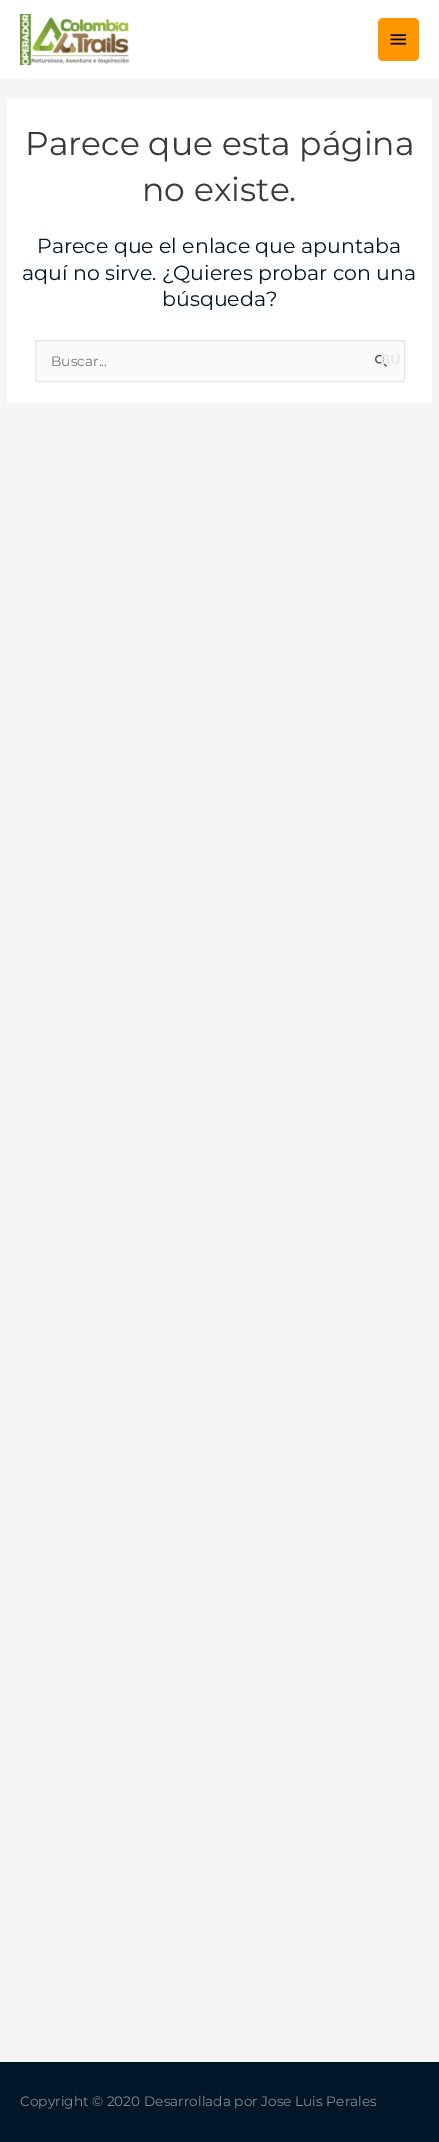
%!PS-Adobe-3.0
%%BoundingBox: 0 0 439 2142
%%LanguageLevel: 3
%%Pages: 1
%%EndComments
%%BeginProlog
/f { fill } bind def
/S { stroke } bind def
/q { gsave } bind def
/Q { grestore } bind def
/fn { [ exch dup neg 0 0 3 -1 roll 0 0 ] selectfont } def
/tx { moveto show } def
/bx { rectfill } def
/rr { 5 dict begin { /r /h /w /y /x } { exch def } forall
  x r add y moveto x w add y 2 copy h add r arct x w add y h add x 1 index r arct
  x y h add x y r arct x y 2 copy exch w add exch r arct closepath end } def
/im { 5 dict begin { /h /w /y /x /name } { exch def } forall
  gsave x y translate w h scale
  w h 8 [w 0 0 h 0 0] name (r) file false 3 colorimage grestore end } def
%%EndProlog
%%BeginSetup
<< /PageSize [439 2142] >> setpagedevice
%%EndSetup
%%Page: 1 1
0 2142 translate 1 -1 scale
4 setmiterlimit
0.961 setgray
0 0 439 2142 bx
1 setgray
0 0 439 79 bx
(image0.raw) 20 14 110 51 im
1 0.588 0 setrgbcolor
378 18 41 43 5 rr f
(image1.raw) 390 34 16 11 im
1 setgray
7 99 425 304 bx
/Montserrat-Regular 33 fn
0.227 setgray
(Parece que esta página) 25 155 tx
(no existe.) 142 201 tx
/Montserrat-Regular 20.5 fn
0.004 0.086 0.153 setrgbcolor
(Parece que el enlace que apuntaba) 37 253 tx
(aquí no sirve. ¿Quieres probar con una) 22 280 tx
(búsqueda?) 162 306 tx
0.98 setgray
35.5 340.5 369 41 1.5 rr q f Q
0.898 setgray
S
(image2.raw) 375 354 12 13 im
/Montserrat-Regular 13.7 fn
0.459 setgray
(Buscar...) 51 366 tx
/Montserrat-Bold 13.7 fn
0.914 0.918 0.922 setrgbcolor
(BU) 380 364 tx
0.004 0.086 0.153 setrgbcolor
0 2062 439 80 bx
/Montserrat-Regular 13.7 fn
0.502 0.545 0.576 setrgbcolor
(Copyright © 2020 Desarrollada por Jose Luis Perales) 20 2106 tx
showpage
%%EOF
